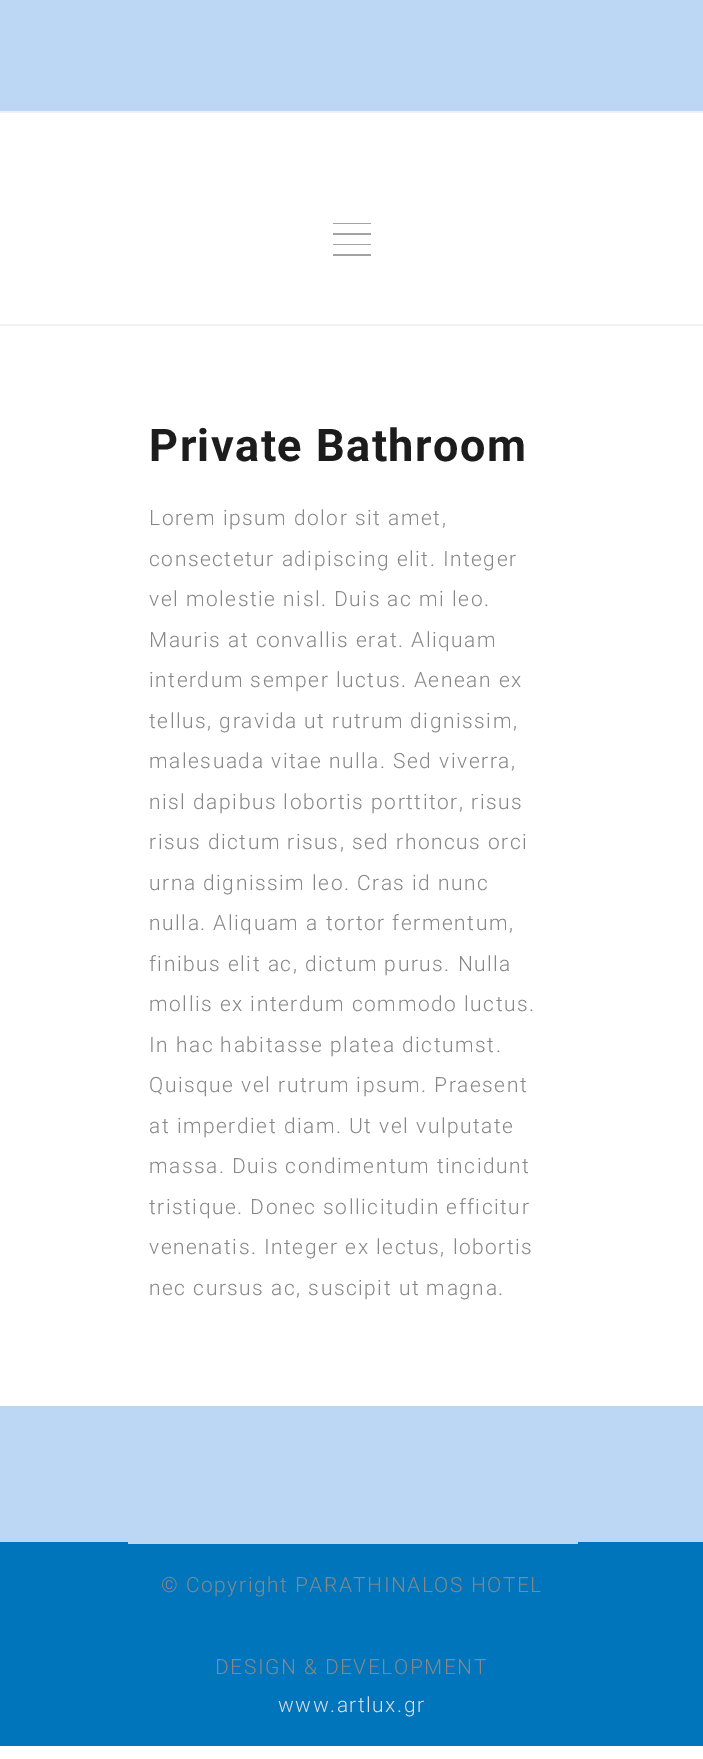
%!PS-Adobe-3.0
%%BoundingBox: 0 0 703 1759
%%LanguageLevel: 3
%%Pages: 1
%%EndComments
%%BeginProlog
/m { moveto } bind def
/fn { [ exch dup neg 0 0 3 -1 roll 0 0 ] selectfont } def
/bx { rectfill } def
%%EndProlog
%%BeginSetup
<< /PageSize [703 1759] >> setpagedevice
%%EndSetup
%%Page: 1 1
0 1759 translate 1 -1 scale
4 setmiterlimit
1 setgray
0 0 703 1759 bx
0.733 0.843 0.953 setrgbcolor
0 0 703 111 bx
0.945 setgray
0 111 703 2 bx
0 324 703 2 bx
0.639 setgray
333 223 38 1 bx
333 233 38 2 bx
333 244 38 1 bx
333 254 38 2 bx
/Roboto-Bold 45 fn
0.11 setgray
149 461 m 1.5 0 (Private Bathroom) ashow
/Roboto-Light 21 fn
0.529 setgray
149 525 m 1.5 0 (Lorem ipsum dolor sit amet,) ashow
149 566 m 1.5 0 (consectetur adipiscing elit. Integer) ashow
149 606 m 1.5 0 (vel molestie nisl. Duis ac mi leo.) ashow
149 647 m 1.5 0 (Mauris at convallis erat. Aliquam) ashow
149 687 m 1.5 0 (interdum semper luctus. Aenean ex) ashow
149 728 m 1.5 0 (tellus, gravida ut rutrum dignissim,) ashow
149 768 m 1.5 0 (malesuada vitae nulla. Sed viverra,) ashow
149 809 m 1.5 0 (nisl dapibus lobortis porttitor, risus) ashow
149 849 m 1.5 0 (risus dictum risus, sed rhoncus orci) ashow
149 890 m 1.5 0 (urna dignissim leo. Cras id nunc) ashow
149 930 m 1.5 0 (nulla. Aliquam a tortor fermentum,) ashow
149 971 m 1.5 0 (finibus elit ac, dictum purus. Nulla) ashow
149 1011 m 1.5 0 (mollis ex interdum commodo luctus.) ashow
149 1052 m 1.5 0 (In hac habitasse platea dictumst.) ashow
149 1092 m 1.5 0 (Quisque vel rutrum ipsum. Praesent) ashow
149 1133 m 1.5 0 (at imperdiet diam. Ut vel vulputate) ashow
149 1173 m 1.5 0 (massa. Duis condimentum tincidunt) ashow
149 1214 m 1.5 0 (tristique. Donec sollicitudin efficitur) ashow
149 1254 m 1.5 0 (venenatis. Integer ex lectus, lobortis) ashow
149 1295 m 1.5 0 (nec cursus ac, suscipit ut magna.) ashow
0.733 0.843 0.953 setrgbcolor
0 1406 703 136 bx
0 0.459 0.733 setrgbcolor
0 1542 703 204 bx
0.733 0.843 0.953 setrgbcolor
128 1542 450 2 bx
0.529 setgray
161 1592 m 1.5 0 (© Copyright PARATHINALOS HOTEL) ashow
215 1674 m 1.5 0 (DESIGN & DEVELOPMENT) ashow
0.867 setgray
278 1712 m 1.5 0 (www.artlux.gr) ashow
showpage
%%EOF
